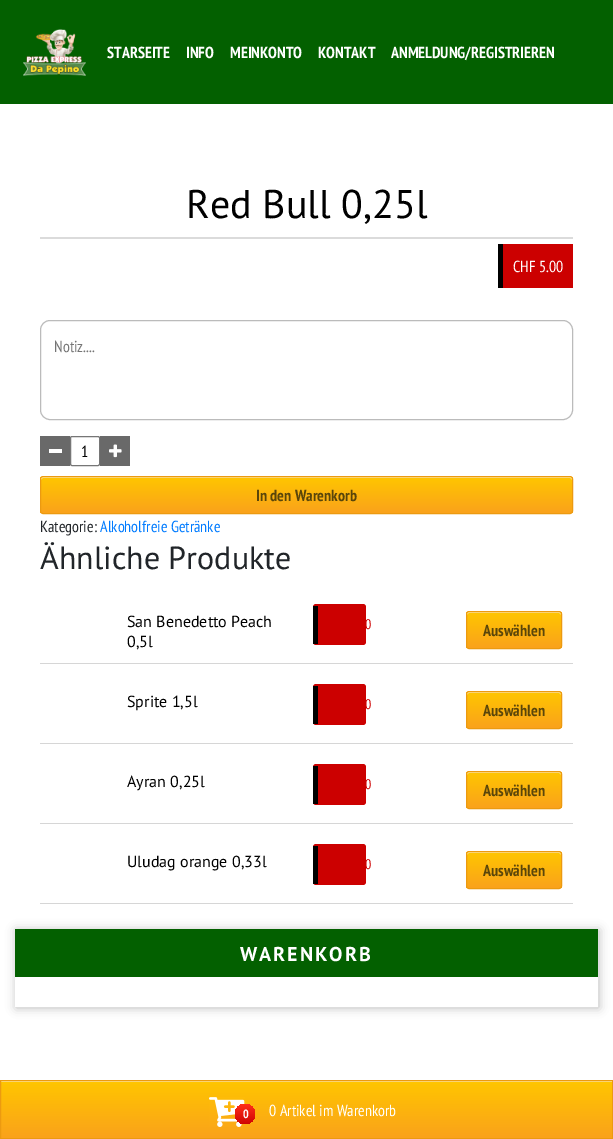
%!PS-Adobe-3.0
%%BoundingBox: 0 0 613 1139
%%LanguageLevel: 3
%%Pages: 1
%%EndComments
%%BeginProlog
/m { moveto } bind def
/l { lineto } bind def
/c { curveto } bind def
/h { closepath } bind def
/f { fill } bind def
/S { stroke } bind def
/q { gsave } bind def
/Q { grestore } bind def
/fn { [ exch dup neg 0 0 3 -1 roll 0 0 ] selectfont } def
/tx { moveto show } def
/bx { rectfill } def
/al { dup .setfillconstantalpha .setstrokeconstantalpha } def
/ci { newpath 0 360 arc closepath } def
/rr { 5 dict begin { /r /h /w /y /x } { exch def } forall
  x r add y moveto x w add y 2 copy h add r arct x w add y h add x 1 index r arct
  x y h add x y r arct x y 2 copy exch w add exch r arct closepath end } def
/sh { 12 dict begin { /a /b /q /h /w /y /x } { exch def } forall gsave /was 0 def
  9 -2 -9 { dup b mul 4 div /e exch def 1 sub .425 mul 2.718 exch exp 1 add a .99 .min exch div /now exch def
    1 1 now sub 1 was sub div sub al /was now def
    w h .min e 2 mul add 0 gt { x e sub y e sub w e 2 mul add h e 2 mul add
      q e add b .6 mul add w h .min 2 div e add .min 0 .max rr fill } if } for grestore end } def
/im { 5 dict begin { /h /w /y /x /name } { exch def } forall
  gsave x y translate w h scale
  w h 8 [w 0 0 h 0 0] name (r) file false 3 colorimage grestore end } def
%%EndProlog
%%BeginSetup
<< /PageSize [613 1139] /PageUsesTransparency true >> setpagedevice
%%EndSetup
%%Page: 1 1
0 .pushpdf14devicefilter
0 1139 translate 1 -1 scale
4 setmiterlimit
1 setgray
0 0 613 1139 bx
0.012 0.376 0 setrgbcolor
0 0 613 104 bx
(image0.raw) 23 29 63 47 im
/PTSansNarrow-Bold 16 fn
1 setgray
(STARSEITE) 107 58 tx
(INFO) 186 58 tx
(MEINKONTO) 230 58 tx
(KONTAKT) 318 58 tx
(ANMELDUNG/REGISTRIEREN) 391 58 tx
q 1 1082 m 612 1082 l 612 1138 l 1 1138 l h clip newpath
<< /ShadingType 2 /ColorSpace /DeviceRGB /Coords [307 1138 307 1081] /Extend [true true] /Function << /FunctionType 2 /Domain [0 1] /C0 [0.98 0.635 0.106] /C1 [1 0.776 0] /N 1 >> >> shfill Q
1 0.91 0.6 setrgbcolor
1 1081 611 1 bx
0.925 0.604 0.063 setrgbcolor
0.5 1080.5 612 58 rectstroke
(image1.raw) 209 1097 36 30 im
q 245 1114 10 ci clip newpath
<< /ShadingType 2 /ColorSpace /DeviceRGB /Coords [245 1104 245 1124] /Extend [true true] /Function << /FunctionType 2 /Domain [0 1] /C0 [1 0.188 0.098] /C1 [0.812 0.016 0.016] /N 1 >> >> shfill Q
/PTSansNarrow-Bold 12 fn
1 setgray
(0) 243 1118 tx
/PTSansNarrow-Regular 16 fn
(0 Artikel im Warenkorb) 269 1116 tx
0.859 setgray
40 237 533 2 bx
/PTSans-Regular 40 fn
0 setgray
(Red Bull 0,25l) 186 218 tx
0.8 0 0 setrgbcolor
503 244 70 44 bx
0 setgray
498 244 5 44 bx
/PTSansNarrow-Regular 16 fn
1 setgray
(CHF 5.00) 513 272 tx
0.733 setgray
40.5 320.5 532 99 9.5 rr S
0.459 setgray
(Notiz....) 54 352 tx
0.412 setgray
40 436 30 30 bx
1 setgray
49 449 13 4 bx
0.463 setgray
70.5 436.5 29 29 1.5 rr S
0 setgray
(1) 81 457 tx
0.412 setgray
100 436 30 30 bx
(image2.raw) 109 444 13 14 im
q
40 476 533 38 3 rr clip newpath
q 40 477 m 573 477 l 573 513 l 40 513 l h clip newpath
<< /ShadingType 2 /ColorSpace /DeviceRGB /Coords [307 513 307 477] /Extend [true true] /Function << /FunctionType 2 /Domain [0 1] /C0 [0.98 0.635 0.106] /C1 [1 0.776 0] /N 1 >> >> shfill Q
Q
1 0.91 0.6 setrgbcolor
43 478 m 570 478 l 571 478 572 479 572 480 c 572 479 572 477 570 477 c 43 477 l 41 478 l 41 480 l 41 479 42 478 43 478 c h f
0.925 0.604 0.063 setrgbcolor
40.5 476.5 532 37 2.5 rr S
/PTSansNarrow-Bold 16 fn
0.353 0.275 0.039 setrgbcolor
(In den Warenkorb) 256 501 tx
/PTSansNarrow-Regular 16 fn
0.129 0.145 0.161 setrgbcolor
(Kategorie:) 40 532 tx
0 0.482 1 setrgbcolor
(Alkoholfreie Getränke) 100 532 tx
/PTSans-Regular 32 fn
0.129 0.145 0.161 setrgbcolor
(Ähnliche Produkte) 40 569 tx
0.839 setgray
40 663 533 1 bx
/PTSans-Regular 16 fn
0 setgray
(San Benedetto Peach) 127 627 tx
(0,5l) 127 647 tx
0.8 0 0 setrgbcolor
313 604 53 41 3 rr f
0 setgray
313 606 5 38 bx
/PTSansNarrow-Regular 14 fn
0.8 0 0 setrgbcolor
(0) 365 629 tx
q
466 611 96 38 3 rr clip newpath
q 466 612 m 562 612 l 562 648 l 466 648 l h clip newpath
<< /ShadingType 2 /ColorSpace /DeviceRGB /Coords [514 648 514 612] /Extend [true true] /Function << /FunctionType 2 /Domain [0 1] /C0 [0.98 0.635 0.106] /C1 [1 0.776 0] /N 1 >> >> shfill Q
Q
0.6 al
1 setgray
469 613 m 559 613 l 560 613 561 614 561 615 c 561 614 561 612 559 612 c 484 612 l 482 612 467 608 467 615 c 467 614 468 613 469 613 c h f
1 al
0.925 0.604 0.063 setrgbcolor
466.5 611.5 95 37 2.5 rr S
/PTSansNarrow-Bold 16 fn
0.353 0.275 0.039 setrgbcolor
(Auswählen) 483 636 tx
0.839 setgray
40 743 533 1 bx
/PTSans-Regular 16 fn
0 setgray
(Sprite 1,5l) 127 707 tx
0.8 0 0 setrgbcolor
313 684 53 41 3 rr f
0 setgray
313 686 5 38 bx
/PTSansNarrow-Regular 14 fn
0.8 0 0 setrgbcolor
(0) 365 709 tx
q
466 691 96 38 3 rr clip newpath
q 466 692 m 562 692 l 562 728 l 466 728 l h clip newpath
<< /ShadingType 2 /ColorSpace /DeviceRGB /Coords [514 728 514 692] /Extend [true true] /Function << /FunctionType 2 /Domain [0 1] /C0 [0.98 0.635 0.106] /C1 [1 0.776 0] /N 1 >> >> shfill Q
Q
0.6 al
1 setgray
469 693 m 559 693 l 560 693 561 694 561 695 c 561 694 561 692 559 692 c 484 692 l 482 692 467 688 467 695 c 467 694 468 693 469 693 c h f
1 al
0.925 0.604 0.063 setrgbcolor
466.5 691.5 95 37 2.5 rr S
/PTSansNarrow-Bold 16 fn
0.353 0.275 0.039 setrgbcolor
(Auswählen) 483 716 tx
0.839 setgray
40 823 533 1 bx
/PTSans-Regular 16 fn
0 setgray
(Ayran 0,25l) 127 787 tx
0.8 0 0 setrgbcolor
313 764 53 41 3 rr f
0 setgray
313 766 5 38 bx
/PTSansNarrow-Regular 14 fn
0.8 0 0 setrgbcolor
(0) 365 789 tx
q
466 771 96 38 3 rr clip newpath
q 466 772 m 562 772 l 562 808 l 466 808 l h clip newpath
<< /ShadingType 2 /ColorSpace /DeviceRGB /Coords [514 808 514 772] /Extend [true true] /Function << /FunctionType 2 /Domain [0 1] /C0 [0.98 0.635 0.106] /C1 [1 0.776 0] /N 1 >> >> shfill Q
Q
0.6 al
1 setgray
469 773 m 559 773 l 560 773 561 774 561 775 c 561 774 561 772 559 772 c 484 772 l 482 772 467 768 467 775 c 467 774 468 773 469 773 c h f
1 al
0.925 0.604 0.063 setrgbcolor
466.5 771.5 95 37 2.5 rr S
/PTSansNarrow-Bold 16 fn
0.353 0.275 0.039 setrgbcolor
(Auswählen) 483 796 tx
0.839 setgray
40 903 533 1 bx
/PTSans-Regular 16 fn
0 setgray
(Uludag orange 0,33l) 127 867 tx
0.8 0 0 setrgbcolor
313 844 53 41 3 rr f
0 setgray
313 846 5 38 bx
/PTSansNarrow-Regular 14 fn
0.8 0 0 setrgbcolor
(0) 365 869 tx
q
466 851 96 38 3 rr clip newpath
q 466 852 m 562 852 l 562 888 l 466 888 l h clip newpath
<< /ShadingType 2 /ColorSpace /DeviceRGB /Coords [514 888 514 852] /Extend [true true] /Function << /FunctionType 2 /Domain [0 1] /C0 [0.98 0.635 0.106] /C1 [1 0.776 0] /N 1 >> >> shfill Q
Q
0.6 al
1 setgray
469 853 m 559 853 l 560 853 561 854 561 855 c 561 854 561 852 559 852 c 484 852 l 482 852 467 848 467 855 c 467 854 468 853 469 853 c h f
1 al
0.925 0.604 0.063 setrgbcolor
466.5 851.5 95 37 2.5 rr S
/PTSansNarrow-Bold 16 fn
0.353 0.275 0.039 setrgbcolor
(Auswählen) 483 876 tx
q
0 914 m 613 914 l 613 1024 l 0 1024 l h 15 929 m 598 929 l 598 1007 l 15 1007 l h eoclip newpath
0.733 setgray
16 930 583 78 0 5 1 sh
Q
0.012 0.376 0 setrgbcolor
15 929 583 48 bx
/PTSans-Bold 20 fn
1 setgray
240 961 m 2 0 (WARENKORB) ashow
.poppdf14devicefilter showpage
%%EOF
